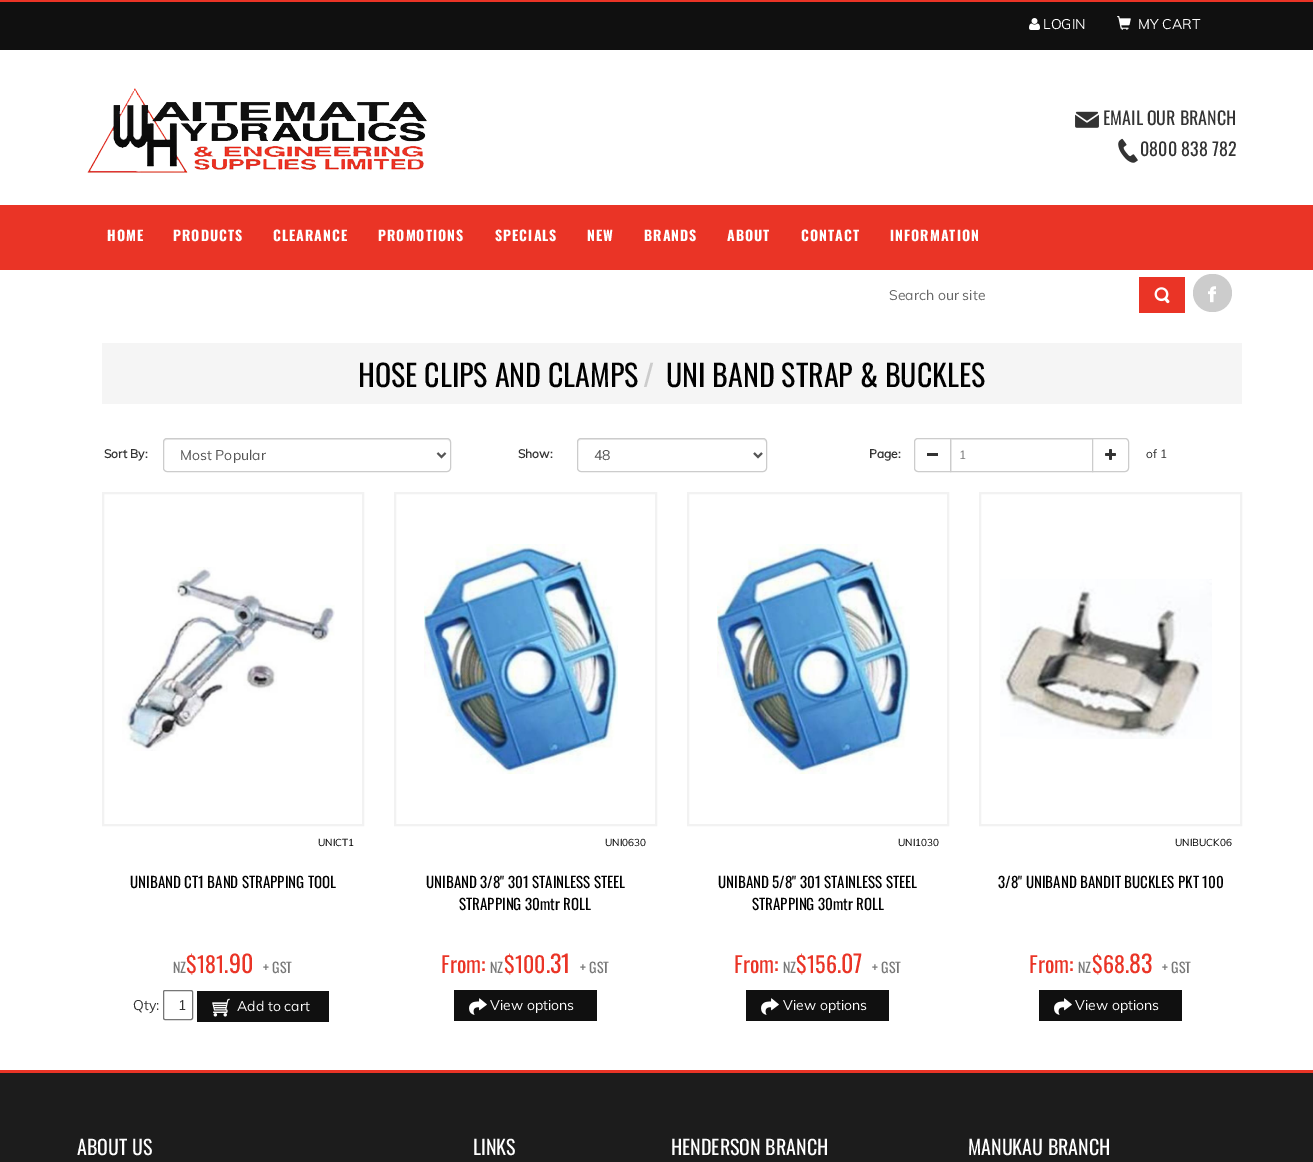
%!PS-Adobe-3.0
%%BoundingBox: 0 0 1313 1162
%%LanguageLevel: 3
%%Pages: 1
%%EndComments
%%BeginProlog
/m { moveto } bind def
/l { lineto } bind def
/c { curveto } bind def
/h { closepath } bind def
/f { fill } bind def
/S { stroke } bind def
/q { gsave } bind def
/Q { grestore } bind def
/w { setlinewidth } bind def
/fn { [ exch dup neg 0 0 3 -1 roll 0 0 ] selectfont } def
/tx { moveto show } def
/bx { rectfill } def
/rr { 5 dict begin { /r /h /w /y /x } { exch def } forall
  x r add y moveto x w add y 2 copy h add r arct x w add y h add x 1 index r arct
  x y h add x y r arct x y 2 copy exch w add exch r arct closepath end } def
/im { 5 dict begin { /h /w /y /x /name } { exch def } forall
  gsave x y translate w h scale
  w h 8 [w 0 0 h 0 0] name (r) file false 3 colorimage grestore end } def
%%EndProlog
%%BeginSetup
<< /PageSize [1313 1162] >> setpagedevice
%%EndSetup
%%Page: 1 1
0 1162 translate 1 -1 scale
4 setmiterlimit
1 setgray
0 0 1313 1162 bx
0.063 setgray
0 2 1313 48 bx
0.918 0.204 0.149 setrgbcolor
0 0 1313 2 bx
(image0.raw) 1029 18 11 12 im
/Muli-Regular 14 fn
1 setgray
(LOGIN) 1043 29 tx
(image1.raw) 1117 16 14 14 im
(MY CART) 1138 29 tx
(image2.raw) 87 88 340 85 im
(image3.raw) 1075 111 24 17 im
/Oswald-Regular 18 fn
0.2 setgray
(EMAIL OUR BRANCH) 1103 125 tx
(image4.raw) 1118 138 20 25 im
(0800 838 782) 1140 156 tx
0.918 0.204 0.149 setrgbcolor
0 205 1313 65 bx
/Oswald-Bold 14 fn
1 setgray
107 241 m 1 0 (HOME) ashow
173 241 m 1 0 (PRODUCTS) ashow
273 241 m 1 0 (CLEARANCE) ashow
378 241 m 1 0 (PROMOTIONS) ashow
495 241 m 1 0 (SPECIALS) ashow
587 241 m 1 0 (NEW) ashow
644 241 m 1 0 (BRANDS) ashow
727 241 m 1 0 (ABOUT) ashow
801 241 m 1 0 (CONTACT) ashow
890 241 m 1 0 (INFORMATION) ashow
/Muli-Regular 14 fn
0.4 setgray
(Search our site) 889 300 tx
0.918 0.204 0.149 setrgbcolor
1139 277 46 36 bx
(image5.raw) 1154 287 16 17 im
0.8 setgray
1193 274 39 38 19 rr f
(image6.raw) 1208 286 8 17 im
0.961 setgray
102 343 1140 61 bx
/Oswald-Regular 30 fn
0 setgray
(HOSE CLIPS AND CLAMPS) 358 387 tx
0.8 setgray
(/) 643 387 tx
0 setgray
(UNI BAND STRAP & BUCKLES) 666 387 tx
/Muli-Bold 12 fn
0.2 setgray
(Sort By:) 104 458 tx
0.925 setgray
167 440 m 447 440 l 449 440 450 441 450 443 c 450 441 449 439 447 439 c 167 439 l 165 439 164 441 164 443 c 164 441 165 440 167 440 c h f
0.8 setgray
163.5 438.5 287 33 3.5 rr S
0.333 setgray
2 w
437.5 453 m 441.5 457 l 445.5 453 l S
/Muli-Regular 14 fn
(Most Popular) 180 460 tx
/Muli-Bold 12 fn
0.2 setgray
(Show:) 518 458 tx
0.925 setgray
581 440 m 763 440 l 765 440 766 441 766 443 c 766 441 765 439 763 439 c 581 439 l 579 439 578 441 578 443 c 578 441 579 440 581 440 c h f
0.8 setgray
1 w
577.5 438.5 189 33 3.5 rr S
0.333 setgray
2 w
754 453 m 758 457 l 762 453 l S
/Muli-Regular 14 fn
(48) 594 460 tx
/Muli-Bold 12 fn
0.2 setgray
(Page:) 869 458 tx
0.8 setgray
1 w
918 438.5 m 950.5 438.5 l 950.5 471.5 l 918 471.5 l 916 471.5 914.5 470 914.5 468 c 914.5 442 l 914.5 440 916 438.5 918 438.5 c h S
0.2 setgray
927 453 11 3 bx
0.925 setgray
951 439 141 1 bx
0.8 setgray
950.5 438.5 142 33 rectstroke
/Muli-Regular 12 fn
0.467 setgray
(1) 959 459 tx
1 setgray
1092.5 438.5 m 1125 438.5 l 1127 438.5 1128.5 440 1128.5 442 c 1128.5 468 l 1128.5 470 1127 471.5 1125 471.5 c 1092.5 471.5 l h q f Q
0.8 setgray
S
(image7.raw) 1105 449 11 11 im
0.2 setgray
(of 1) 1146 458 tx
0.949 setgray
2 w
103 493 260 332 rectstroke
(image8.raw) 122 567 213 184 im
/Muli-Regular 10 fn
0 setgray
(UNICT1) 318 846 tx
/Oswald-Regular 15 fn
(UNIBAND CT1 BAND STRAPPING TOOL) 130 888 tx
/Oswald-Regular 14 fn
0.467 setgray
(NZ) 173 973 tx
/Oswald-Regular 22 fn
0.918 0.204 0.149 setrgbcolor
($181.) 186 973 tx
/Oswald-Regular 24 fn
(90) 229 973 tx
/Oswald-Regular 14 fn
0.467 setgray
(+ GST) 263 973 tx
/Muli-Regular 14 fn
0.2 setgray
(Qty:) 133 1010 tx
0.463 setgray
1 w
163.5 990.5 29 29 1.5 rr S
0.2 setgray
(1) 178 1010 tx
0.063 setgray
197 991 132 31 bx
(image9.raw) 212 998 18 19 im
1 setgray
(Add to cart) 237 1011 tx
0.949 setgray
2 w
395 493 261 332 rectstroke
(image10.raw) 424 544 194 230 im
/Muli-Regular 10 fn
0 setgray
(UNI0630) 605 846 tx
/Oswald-Regular 15 fn
(UNIBAND 3/8" 301 STAINLESS STEEL) 426 888 tx
(STRAPPING 30mtr ROLL) 459 910 tx
/Oswald-Regular 22 fn
0.918 0.204 0.149 setrgbcolor
(From:) 441 973 tx
/Oswald-Regular 14 fn
0.467 setgray
(NZ) 490 973 tx
/Oswald-Regular 22 fn
0.918 0.204 0.149 setrgbcolor
($100.) 504 973 tx
/Oswald-Regular 24 fn
(31) 550 973 tx
/Oswald-Regular 14 fn
0.467 setgray
(+ GST) 580 973 tx
0.063 setgray
454 990 143 31 bx
(image11.raw) 469 998 18 17 im
/Muli-Regular 14 fn
1 setgray
(View options) 490 1010 tx
0.949 setgray
688 493 260 332 rectstroke
(image12.raw) 717 544 193 230 im
/Muli-Regular 10 fn
0 setgray
(UNI1030) 898 846 tx
/Oswald-Regular 15 fn
(UNIBAND 5/8" 301 STAINLESS STEEL) 718 888 tx
(STRAPPING 30mtr ROLL) 752 910 tx
/Oswald-Regular 22 fn
0.918 0.204 0.149 setrgbcolor
(From:) 734 973 tx
/Oswald-Regular 14 fn
0.467 setgray
(NZ) 783 973 tx
/Oswald-Regular 22 fn
0.918 0.204 0.149 setrgbcolor
($156.) 796 973 tx
/Oswald-Regular 24 fn
(07) 841 973 tx
/Oswald-Regular 14 fn
0.467 setgray
(+ GST) 872 973 tx
0.063 setgray
746 990 143 31 bx
(image11.raw) 761 998 18 17 im
/Muli-Regular 14 fn
1 setgray
(View options) 783 1010 tx
0.949 setgray
980 493 261 332 rectstroke
(image13.raw) 1000 579 212 160 im
/Muli-Regular 10 fn
0 setgray
(UNIBUCK06) 1175 846 tx
/Oswald-Regular 15 fn
(3/8" UNIBAND BANDIT BUCKLES PKT 100) 998 888 tx
/Oswald-Regular 22 fn
0.918 0.204 0.149 setrgbcolor
(From:) 1029 973 tx
/Oswald-Regular 14 fn
0.467 setgray
(NZ) 1078 973 tx
/Oswald-Regular 22 fn
0.918 0.204 0.149 setrgbcolor
($68.) 1092 973 tx
/Oswald-Regular 24 fn
(83) 1129 973 tx
/Oswald-Regular 14 fn
0.467 setgray
(+ GST) 1162 973 tx
0.063 setgray
1039 990 143 31 bx
(image11.raw) 1054 998 18 17 im
/Muli-Regular 14 fn
1 setgray
(View options) 1075 1010 tx
0.11 setgray
0 1073 1313 89 bx
0.918 0.204 0.149 setrgbcolor
0 1070 1313 3 bx
/Oswald-Regular 20 fn
1 setgray
(ABOUT US) 77 1155 tx
(LINKS) 473 1155 tx
(HENDERSON BRANCH) 671 1155 tx
(MANUKAU BRANCH) 968 1155 tx
showpage
%%EOF
